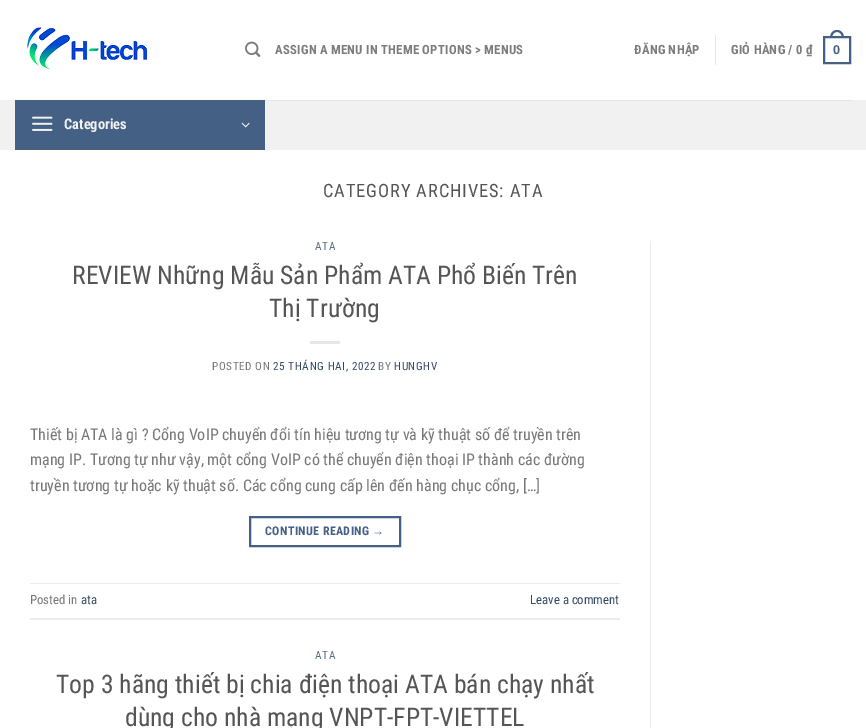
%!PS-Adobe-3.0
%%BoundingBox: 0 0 866 728
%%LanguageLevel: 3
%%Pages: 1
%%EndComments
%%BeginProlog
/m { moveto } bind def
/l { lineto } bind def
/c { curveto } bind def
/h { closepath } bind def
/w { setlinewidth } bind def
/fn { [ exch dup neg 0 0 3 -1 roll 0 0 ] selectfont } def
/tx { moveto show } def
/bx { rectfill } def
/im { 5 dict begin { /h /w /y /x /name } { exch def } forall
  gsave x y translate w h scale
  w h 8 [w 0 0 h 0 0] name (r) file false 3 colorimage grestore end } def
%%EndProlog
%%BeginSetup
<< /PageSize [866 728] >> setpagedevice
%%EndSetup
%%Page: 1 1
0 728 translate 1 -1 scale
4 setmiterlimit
1 setgray
0 0 866 728 bx
(image0.raw) 27 27 121 43 im
(image1.raw) 245 41 16 16 im
/RobotoCondensed-Bold 12.75 fn
0.49 setgray
275 54 m 0.25 0 (ASSIGN A MENU IN THEME OPTIONS > MENUS) ashow
634 54 m 0.25 0 (ĐĂNG NHẬP) ashow
0.902 setgray
715 35 1 30 bx
0.49 setgray
731 54 m 0.25 0 (GIỎ HÀNG / 0 ₫) ashow
0.267 0.376 0.518 setrgbcolor
2 w
824 37 26 26 rectstroke
837 30 m 841.5 30 844 34 844 38 c 830 38 l 830 34 832.5 30 837 30 c h 837 32 m 840.5 32 842 35 842 38 c 832 38 l 832 35 833.5 32 837 32 c h eofill
/LiberationSans-Bold 12.75 fn
833 54 m 0.25 0 (0) ashow
0.945 setgray
0 100 866 50 bx
0.898 setgray
265 100 586 1 bx
0.267 0.376 0.518 setrgbcolor
15 101 250 49 bx
0.286 0.384 0.514 setrgbcolor
15 100 250 1 bx
(image2.raw) 32 116 21 15 im
/RobotoCondensed-Bold 14.5 fn
0.945 setgray
(Categories) 64 129 tx
(image3.raw) 241 122 9 6 im
/RobotoCondensed-Regular 18.4 fn
0.333 setgray
323 197 m 0.9 0 (CATEGORY ARCHIVES: ATA) ashow
/RobotoCondensed-Regular 11.25 fn
0.361 0.427 0.506 setrgbcolor
315 250 m 0.6 0 (ATA) ashow
/RobotoCondensed-Regular 25.6 fn
0.333 setgray
(REVIEW Những Mẫu Sản Phẩm ATA Phổ Biến Trên) 72 284 tx
(Thị Trường) 269 317 tx
0.902 setgray
310 341 30 3 bx
/RobotoCondensed-Regular 11.25 fn
0.467 setgray
212 370 m 0.6 0 (POSTED ON) ashow
0.2 0.282 0.384 setrgbcolor
273 370 m 0.6 0 (25 THÁNG HAI, 2022) ashow
0.467 setgray
378 370 m 0.6 0 (BY) ashow
0.2 0.282 0.384 setrgbcolor
394 370 m 0.6 0 (HUNGHV) ashow
/RobotoCondensed-Regular 16 fn
0.467 setgray
(Thiết bị ATA là gì ? Cổng VoIP chuyển đổi tín hiệu tương tự và kỹ thuật số để truyền trên) 30 440 tx
(mạng IP. Tương tự như vậy, một cổng VoIP có thể chuyển điện thoại IP thành các đường) 30 465 tx
(truyền tương tự hoặc kỹ thuật số. Các cổng cung cấp lên đến hàng chục cổng, […]) 30 491 tx
0.267 0.376 0.518 setrgbcolor
250 517 150 29 rectstroke
/RobotoCondensed-Bold 12 fn
265 535 m 0.4 0 (CONTINUE READING) ashow
/LiberationSans-Bold 12 fn
372 535 m 0.4 0 (→) ashow
0.925 setgray
30 583 590 1 bx
30 618 590 2 bx
/RobotoCondensed-Regular 12.75 fn
0.467 setgray
(Posted in) 30 604 tx
0.2 0.282 0.384 setrgbcolor
(ata) 81 604 tx
(Leave a comment) 530 604 tx
/RobotoCondensed-Regular 11.25 fn
0.361 0.427 0.506 setrgbcolor
315 659 m 0.6 0 (ATA) ashow
/RobotoCondensed-Regular 25.6 fn
0.333 setgray
(Top 3 hãng thiết bị chia điện thoại ATA bán chạy nhất) 56 693 tx
(dùng cho nhà mạng VNPT-FPT-VIETTEL) 125 726 tx
0.925 setgray
650 241 1 487 bx
showpage
%%EOF
